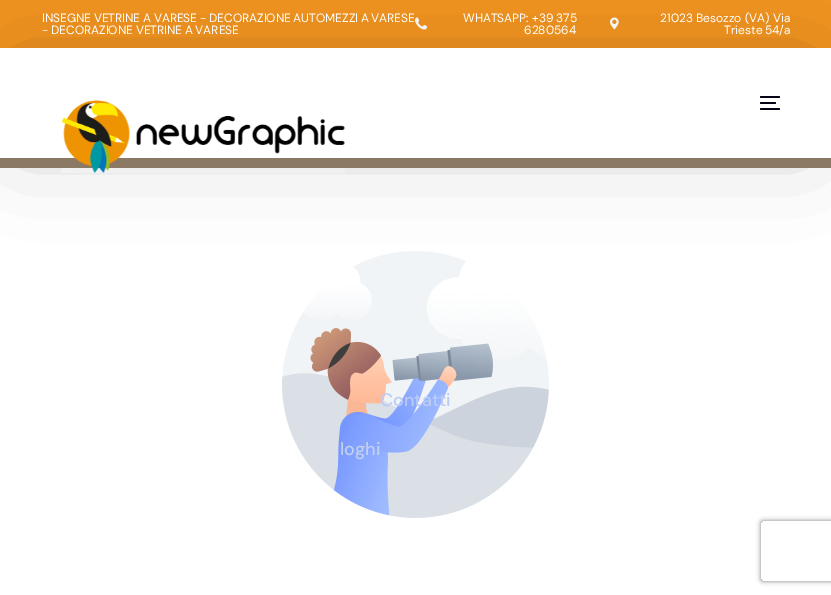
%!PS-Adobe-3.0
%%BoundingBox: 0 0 831 595
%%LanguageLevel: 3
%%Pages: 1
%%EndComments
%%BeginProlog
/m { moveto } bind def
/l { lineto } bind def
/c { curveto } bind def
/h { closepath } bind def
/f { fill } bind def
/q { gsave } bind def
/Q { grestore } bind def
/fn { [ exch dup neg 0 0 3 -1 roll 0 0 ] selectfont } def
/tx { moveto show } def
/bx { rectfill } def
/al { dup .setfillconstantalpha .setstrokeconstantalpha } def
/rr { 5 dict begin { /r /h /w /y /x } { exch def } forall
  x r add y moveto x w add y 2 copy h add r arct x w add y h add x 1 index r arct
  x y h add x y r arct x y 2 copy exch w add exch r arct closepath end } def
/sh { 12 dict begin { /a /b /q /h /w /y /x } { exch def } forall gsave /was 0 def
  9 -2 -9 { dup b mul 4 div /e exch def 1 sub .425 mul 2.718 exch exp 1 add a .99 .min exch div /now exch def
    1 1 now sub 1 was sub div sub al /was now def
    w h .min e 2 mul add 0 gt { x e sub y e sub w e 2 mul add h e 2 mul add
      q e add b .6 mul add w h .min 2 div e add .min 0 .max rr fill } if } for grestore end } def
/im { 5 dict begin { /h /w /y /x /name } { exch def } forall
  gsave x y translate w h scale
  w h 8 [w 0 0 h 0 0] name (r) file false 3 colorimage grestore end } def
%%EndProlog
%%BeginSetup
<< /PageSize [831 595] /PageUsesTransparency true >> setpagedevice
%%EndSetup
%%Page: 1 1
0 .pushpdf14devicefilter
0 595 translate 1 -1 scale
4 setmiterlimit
1 setgray
0 0 831 595 bx
0.945 0.58 0.122 setrgbcolor
0 0 831 48 bx
(image1.raw) 415 17 12 13 im
(image2.raw) 610 17 9 13 im
(image3.raw) 282 251 267 267 im
q
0 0 m 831 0 l 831 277 l 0 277 l h 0 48 m 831 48 l 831 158 l 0 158 l h eoclip newpath
0 setgray
18 71 791 70 0 45 0.25 sh
Q
0.549 0.475 0.392 setrgbcolor
0 158 831 10 bx
(image0.raw) 61 100 284 73 im
0.031 0.016 0.082 setrgbcolor
760 96 20 2 1 rr f
760 102 16 2 1 rr f
760 108 20 2 1 rr f
/DMSans-Regular 12 fn
1 setgray
42 22 m -0.5 0 32 (INSEGNE VETRINE A VARESE - DECORAZIONE AUTOMEZZI A VARESE) widthshow
42 34 m -0.5 0 32 (- DECORAZIONE VETRINE A VARESE) widthshow
(WHATSAPP: +39 375) 463 22 tx
(6280564) 524 34 tx
(21023 Besozzo \(VA\) Via) 660 22 tx
724 34 m -1 0 32 (Trieste 54/a) widthshow
/DMSans-Medium 18 fn
0.737 0.796 0.961 setrgbcolor
(Contatti) 380 406 tx
0.765 0.816 0.929 setrgbcolor
340 455 m -1 0 32 (loghi) widthshow
q
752 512 m 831 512 l 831 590 l 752 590 l h 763 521 m 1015 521 l 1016 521 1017 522 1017 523 c 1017 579 l 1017 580 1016 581 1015 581 c 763 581 l 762 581 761 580 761 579 c 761 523 l 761 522 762 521 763 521 c h eoclip newpath
0.502 setgray
761 521 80 60 2 2.5 1 sh
Q
.poppdf14devicefilter showpage
%%EOF
